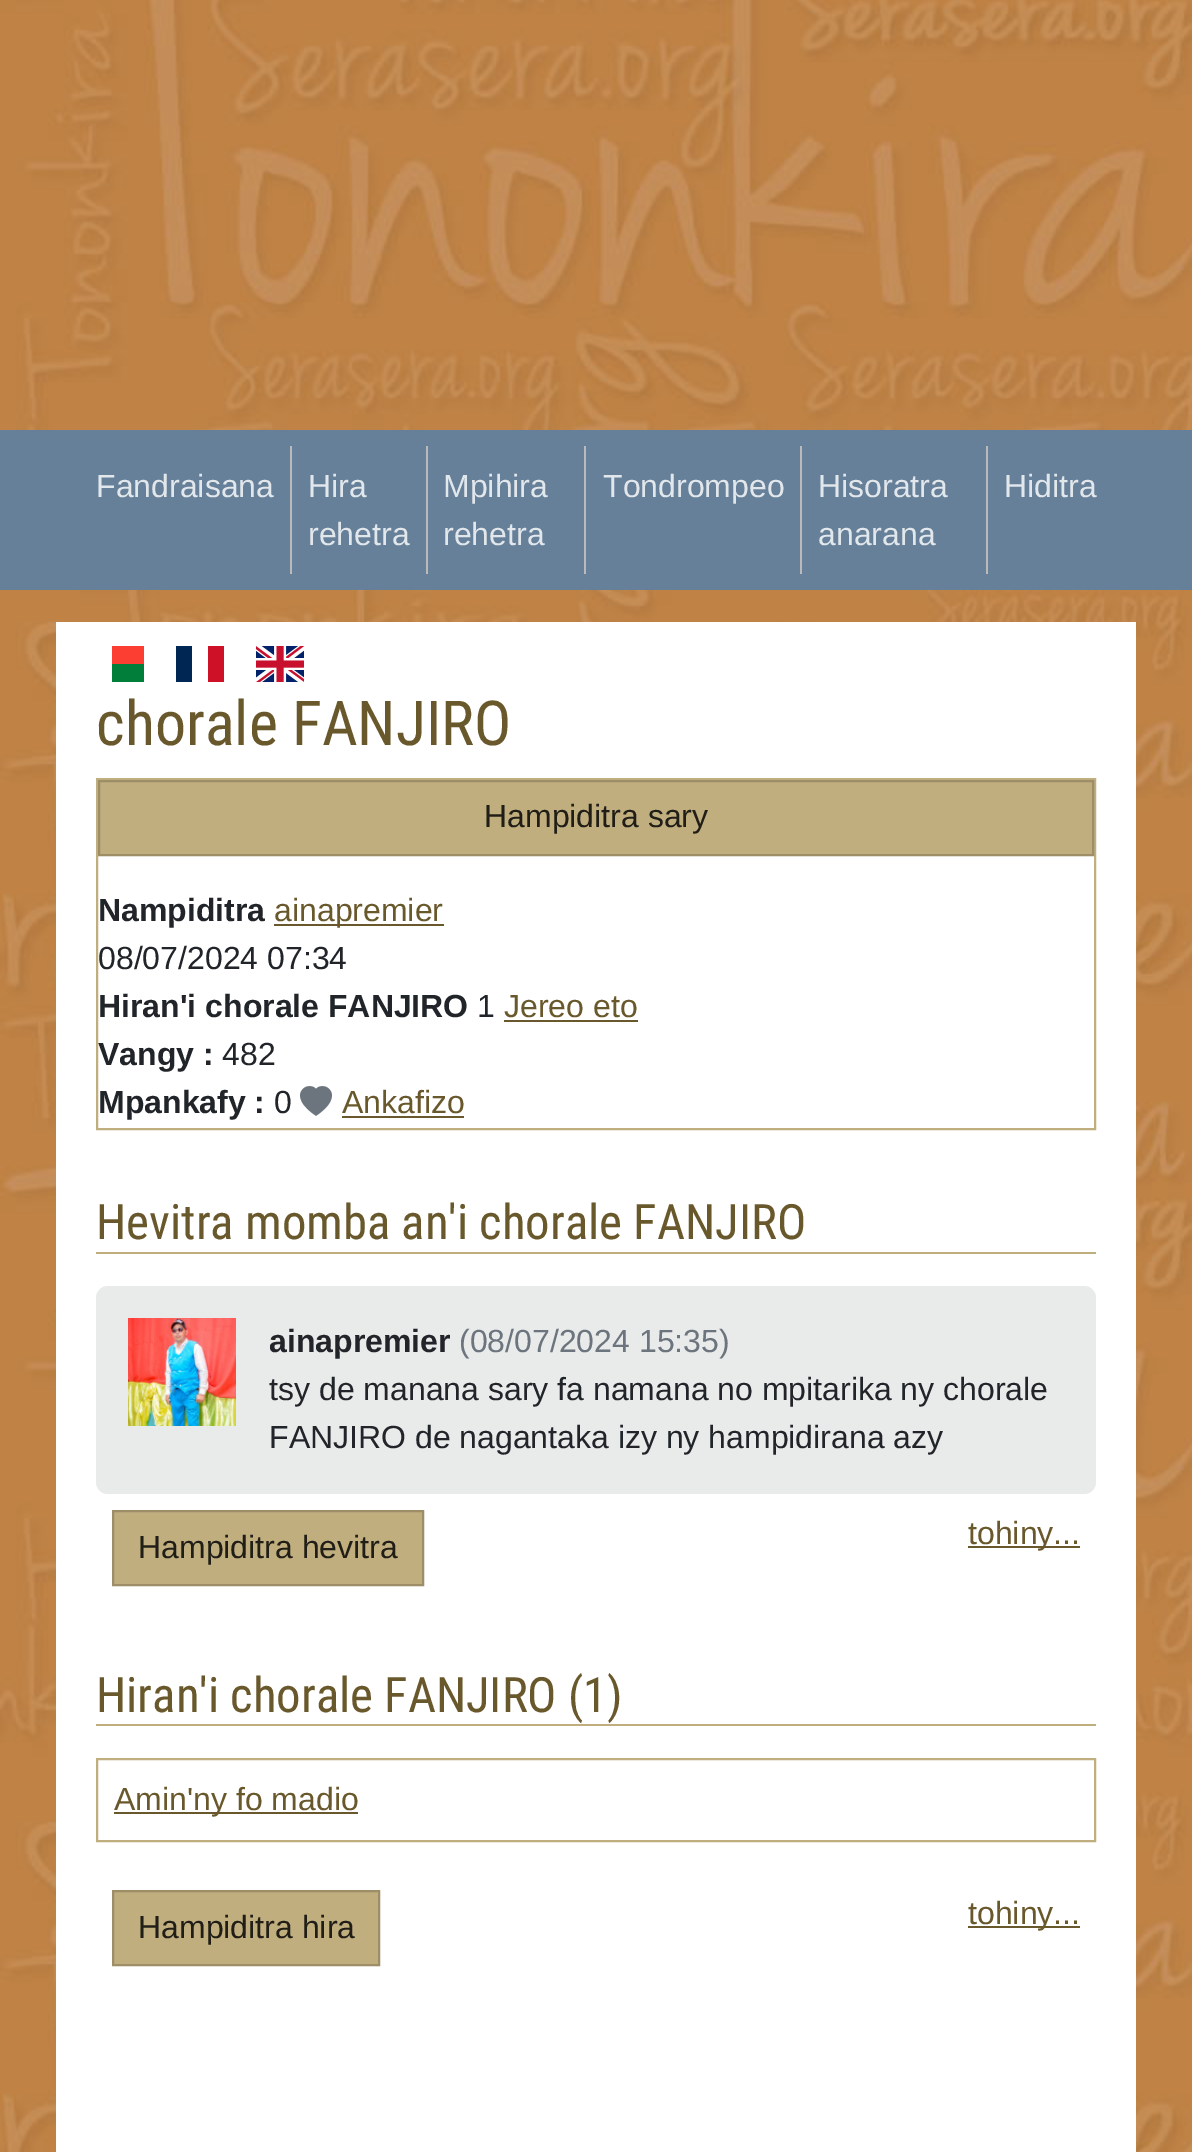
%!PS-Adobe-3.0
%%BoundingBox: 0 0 1192 2152
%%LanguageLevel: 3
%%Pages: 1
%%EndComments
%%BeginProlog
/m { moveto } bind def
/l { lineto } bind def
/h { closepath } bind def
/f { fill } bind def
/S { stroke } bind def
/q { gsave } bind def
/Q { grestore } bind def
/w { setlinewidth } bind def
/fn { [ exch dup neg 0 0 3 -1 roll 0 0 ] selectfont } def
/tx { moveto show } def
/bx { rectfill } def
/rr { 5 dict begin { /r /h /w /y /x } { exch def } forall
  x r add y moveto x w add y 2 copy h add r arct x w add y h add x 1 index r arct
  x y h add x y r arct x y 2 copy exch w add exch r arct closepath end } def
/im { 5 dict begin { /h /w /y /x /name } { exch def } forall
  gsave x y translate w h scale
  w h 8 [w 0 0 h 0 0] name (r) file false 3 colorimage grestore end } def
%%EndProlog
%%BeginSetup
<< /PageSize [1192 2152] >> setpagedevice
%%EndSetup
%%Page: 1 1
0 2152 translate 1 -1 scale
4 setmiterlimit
1 setgray
0 0 1192 2152 bx
(image0.raw) 0 0 1192 2152 im
0.4 0.502 0.6 setrgbcolor
0 430 1192 160 bx
0.729 setgray
290 446 2 128 bx
/LiberationSans-Regular 32 fn
0.886 0.906 0.925 setrgbcolor
(Fandraisana) 96 497 tx
0.729 setgray
426 446 2 128 bx
0.886 0.906 0.925 setrgbcolor
(Hira) 308 497 tx
(rehetra) 308 545 tx
0.729 setgray
584 446 2 128 bx
0.886 0.906 0.925 setrgbcolor
(Mpihira) 443 497 tx
(rehetra) 443 545 tx
0.729 setgray
800 446 2 128 bx
0.886 0.906 0.925 setrgbcolor
(Tondrompeo) 603 497 tx
0.729 setgray
986 446 2 128 bx
0.886 0.906 0.925 setrgbcolor
(Hisoratra) 818 497 tx
(anarana) 818 545 tx
(Hiditra) 1004 497 tx
1 setgray
56 622 1080 1530 bx
0.988 0.239 0.196 setrgbcolor
112 646 32 18 bx
0 0.494 0.227 setrgbcolor
112 664 32 18 bx
0 0.149 0.329 setrgbcolor
176 646 16 36 bx
0.808 0.067 0.149 setrgbcolor
208 646 16 36 bx
(image1.raw) 256 646 48 36 im
/RobotoCondensed-Regular 62 fn
0.412 0.345 0.169 setrgbcolor
(chorale FANJIRO) 96 745 tx
0.753 0.682 0.498 setrgbcolor
2 w
97 779 998 350 rectstroke
99 781 m 1093 781 l 1093 855 l 99 855 l h q f Q
0.62 0.557 0.404 setrgbcolor
S
/LiberationSans-Regular 32 fn
0.125 0.118 0.086 setrgbcolor
(Hampiditra sary) 484 827 tx
/LiberationSans-Bold 32 fn
0.129 0.145 0.161 setrgbcolor
(Nampiditra) 98 921 tx
0.412 0.345 0.169 setrgbcolor
274 924 170 2 bx
/LiberationSans-Regular 32 fn
(ainapremier) 274 921 tx
0.129 0.145 0.161 setrgbcolor
(08/07/2024 07:34) 98 969 tx
/LiberationSans-Bold 32 fn
(Hiran'i chorale FANJIRO) 98 1017 tx
/LiberationSans-Regular 32 fn
(1) 477 1017 tx
0.412 0.345 0.169 setrgbcolor
(Jereo eto) 504 1017 tx
504 1020 134 2 bx
/LiberationSans-Bold 32 fn
0.129 0.145 0.161 setrgbcolor
(Vangy :) 98 1065 tx
/LiberationSans-Regular 32 fn
(482) 222 1065 tx
/LiberationSans-Bold 32 fn
(Mpankafy :) 98 1113 tx
/LiberationSans-Regular 32 fn
(0) 274 1113 tx
(image2.raw) 300 1086 32 30 im
0.412 0.345 0.169 setrgbcolor
(Ankafizo) 342 1113 tx
342 1116 122 2 bx
0.753 0.682 0.498 setrgbcolor
96 1252 1000 2 bx
/RobotoCondensed-Regular 48.75 fn
0.412 0.345 0.169 setrgbcolor
(Hevitra momba an'i chorale FANJIRO) 96 1239 tx
0.914 0.918 0.918 setrgbcolor
96 1286 1000 208 12 rr f
(image3.raw) 128 1318 108 108 im
/LiberationSans-Bold 32 fn
0.129 0.145 0.161 setrgbcolor
(ainapremier) 269 1352 tx
/LiberationSans-Regular 32 fn
0.424 0.459 0.49 setrgbcolor
(\(08/07/2024 15:35\)) 459 1352 tx
0.129 0.145 0.161 setrgbcolor
(tsy de manana sary fa namana no mpitarika ny chorale) 269 1400 tx
(FANJIRO de nagantaka izy ny hampidirana azy) 269 1448 tx
0.753 0.682 0.498 setrgbcolor
113 1511 m 423 1511 l 423 1585 l 113 1585 l h q f Q
0.62 0.557 0.404 setrgbcolor
S
0.125 0.118 0.086 setrgbcolor
(Hampiditra hevitra) 138 1558 tx
0.412 0.345 0.169 setrgbcolor
968 1546 112 2 bx
(tohiny...) 968 1544 tx
0.753 0.682 0.498 setrgbcolor
96 1724 1000 2 bx
/RobotoCondensed-Regular 48.75 fn
0.412 0.345 0.169 setrgbcolor
(Hiran'i chorale FANJIRO \(1\)) 96 1712 tx
0.753 0.682 0.498 setrgbcolor
97 1759 998 82 rectstroke
0.412 0.345 0.169 setrgbcolor
114 1812 244 2 bx
/LiberationSans-Regular 32 fn
(Amin'ny fo madio) 114 1810 tx
0.753 0.682 0.498 setrgbcolor
113 1891 m 379 1891 l 379 1965 l 113 1965 l h q f Q
0.62 0.557 0.404 setrgbcolor
S
0.125 0.118 0.086 setrgbcolor
(Hampiditra hira) 138 1938 tx
0.412 0.345 0.169 setrgbcolor
968 1926 112 2 bx
(tohiny...) 968 1924 tx
showpage
%%EOF
